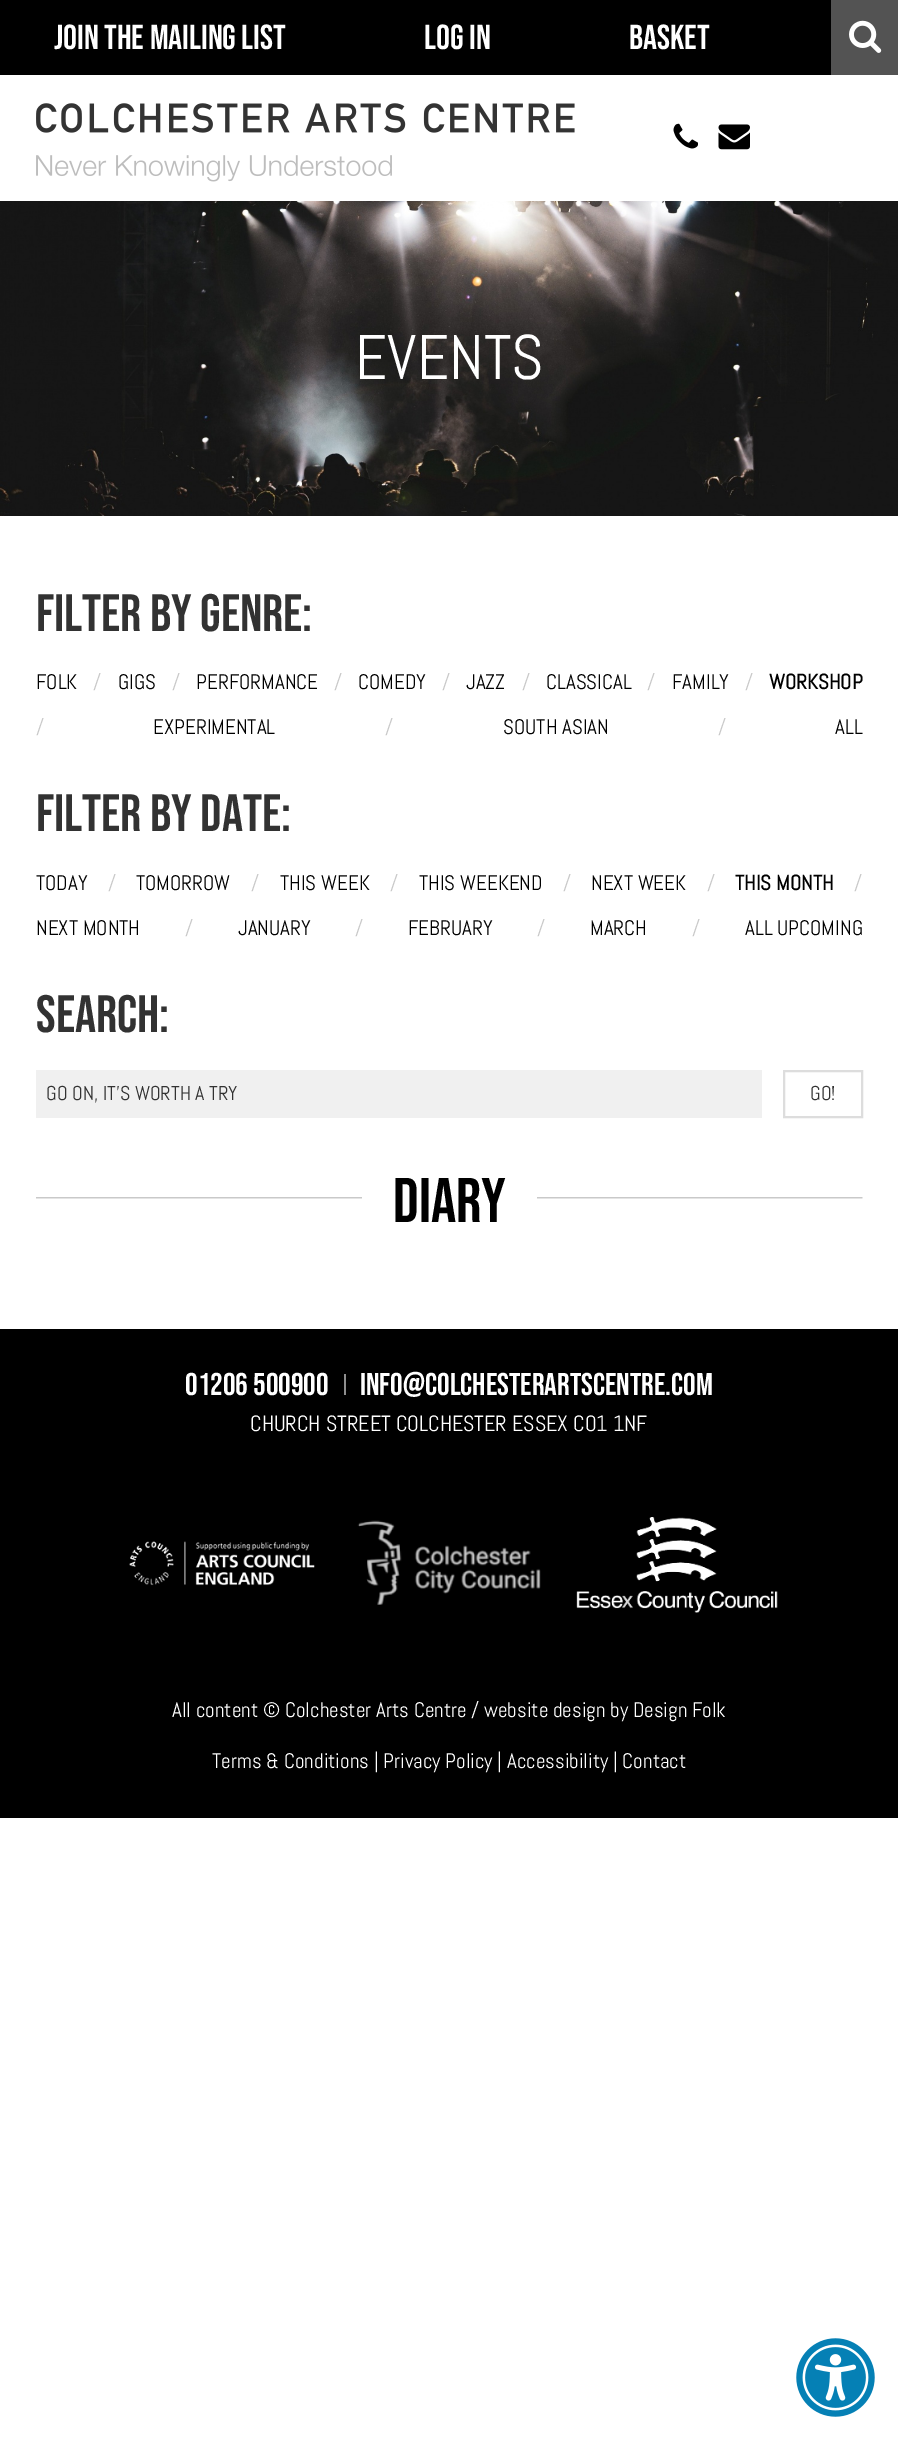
%!PS-Adobe-3.0
%%BoundingBox: 0 0 898 2441
%%LanguageLevel: 3
%%Pages: 1
%%EndComments
%%BeginProlog
/w { setlinewidth } bind def
/fn { [ exch dup neg 0 0 3 -1 roll 0 0 ] selectfont } def
/tx { moveto show } def
/bx { rectfill } def
/im { 5 dict begin { /h /w /y /x /name } { exch def } forall
  gsave x y translate w h scale
  w h 8 [w 0 0 h 0 0] name (r) file false 3 colorimage grestore end } def
%%EndProlog
%%BeginSetup
<< /PageSize [898 2441] >> setpagedevice
%%EndSetup
%%Page: 1 1
0 2441 translate 1 -1 scale
4 setmiterlimit
1 setgray
0 0 898 2441 bx
0 setgray
0 0 831 75 bx
/BebasNeue-Regular 34.75 fn
1 setgray
(Join The Mailing List) 54 49 tx
(Log In) 424 49 tx
(Basket) 629 49 tx
0.325 setgray
831 0 67 75 bx
(image0.raw) 849 20 33 33 im
(image1.raw) 36 103 539 79 im
(image2.raw) 673 123 25 26 im
(image3.raw) 718 124 32 26 im
(image4.raw) 0 201 898 315 im
/Abel-Regular 63 fn
1 setgray
(EVENTS) 355 379 tx
/BebasNeue-Regular 52.5 fn
0.196 setgray
(Filter by genre:) 36 631 tx
/Abel-Regular 21 fn
0 setgray
(FOLK) 36 689 tx
0.788 setgray
(/) 93 689 tx
0 setgray
(GIGS) 118 689 tx
0.788 setgray
(/) 172 689 tx
0 setgray
(PERFORMANCE) 196 689 tx
0.788 setgray
(/) 334 689 tx
0 setgray
(COMEDY) 358 689 tx
0.788 setgray
(/) 442 689 tx
0 setgray
(JAZZ) 466 689 tx
0.788 setgray
(/) 522 689 tx
0 setgray
(CLASSICAL) 546 689 tx
0.788 setgray
(/) 647 689 tx
0 setgray
(FAMILY) 672 689 tx
0.788 setgray
(/) 745 689 tx
/Abel-Bold 21 fn
0 setgray
(WORKSHOP) 769 689 tx
/Abel-Regular 21 fn
0.788 setgray
(/) 36 734 tx
0 setgray
(EXPERIMENTAL) 153 734 tx
0.788 setgray
(/) 385 734 tx
0 setgray
(SOUTH ASIAN) 503 734 tx
0.788 setgray
(/) 718 734 tx
0 setgray
(ALL) 835 734 tx
/BebasNeue-Regular 52.5 fn
0.196 setgray
(Filter by date:) 36 831 tx
/Abel-Regular 21 fn
0 setgray
(TODAY) 36 890 tx
0.788 setgray
(/) 108 890 tx
0 setgray
(TOMORROW) 136 890 tx
0.788 setgray
(/) 251 890 tx
0 setgray
(THIS WEEK) 280 890 tx
0.788 setgray
(/) 390 890 tx
0 setgray
(THIS WEEKEND) 419 890 tx
0.788 setgray
(/) 563 890 tx
0 setgray
(NEXT WEEK) 591 890 tx
0.788 setgray
(/) 707 890 tx
/Abel-Bold 21 fn
0 setgray
(THIS MONTH) 735 890 tx
/Abel-Regular 21 fn
0.788 setgray
(/) 854 890 tx
0 setgray
(NEXT MONTH) 36 935 tx
0.788 setgray
(/) 185 935 tx
0 setgray
(JANUARY) 238 935 tx
0.788 setgray
(/) 355 935 tx
0 setgray
(FEBRUARY) 408 935 tx
0.788 setgray
(/) 537 935 tx
0 setgray
(MARCH) 590 935 tx
0.788 setgray
(/) 692 935 tx
0 setgray
(ALL UPCOMING) 745 935 tx
/BebasNeue-Regular 52.5 fn
0.196 setgray
(Search:) 36 1032 tx
0.941 setgray
36 1070 726 48 bx
/Abel-Regular 20 fn
0.196 setgray
(GO ON, IT'S WORTH A TRY) 46 1100 tx
0.867 setgray
2 w
784 1071 78 46 rectstroke
0.196 setgray
(GO!) 810 1100 tx
(image5.raw) 36 1197 827 2 im
1 setgray
362 1197 175 2 bx
/BebasNeue-Regular 63 fn
0 setgray
(Diary) 393 1222 tx
0 1329 898 489 bx
/BebasNeue-Regular 31.5 fn
1 setgray
(01206 500900) 185 1395 tx
0.557 setgray
344 1374 2 21 bx
1 setgray
(info@colchesterartscentre.com) 360 1395 tx
/Abel-Regular 22 fn
(CHURCH STREET COLCHESTER ESSEX CO1 1NF) 250 1431 tx
(image6.raw) 129 1541 186 45 im
(image7.raw) 357 1520 184 85 im
(image8.raw) 576 1517 202 96 im
/Abel-Regular 21 fn
(All content © Colchester Arts Centre / website design by Design Folk) 172 1717 tx
(Terms & Conditions | Privacy Policy | Accessibility | Contact) 212 1768 tx
(image9.raw) 796 2338 79 79 im
showpage
%%EOF
